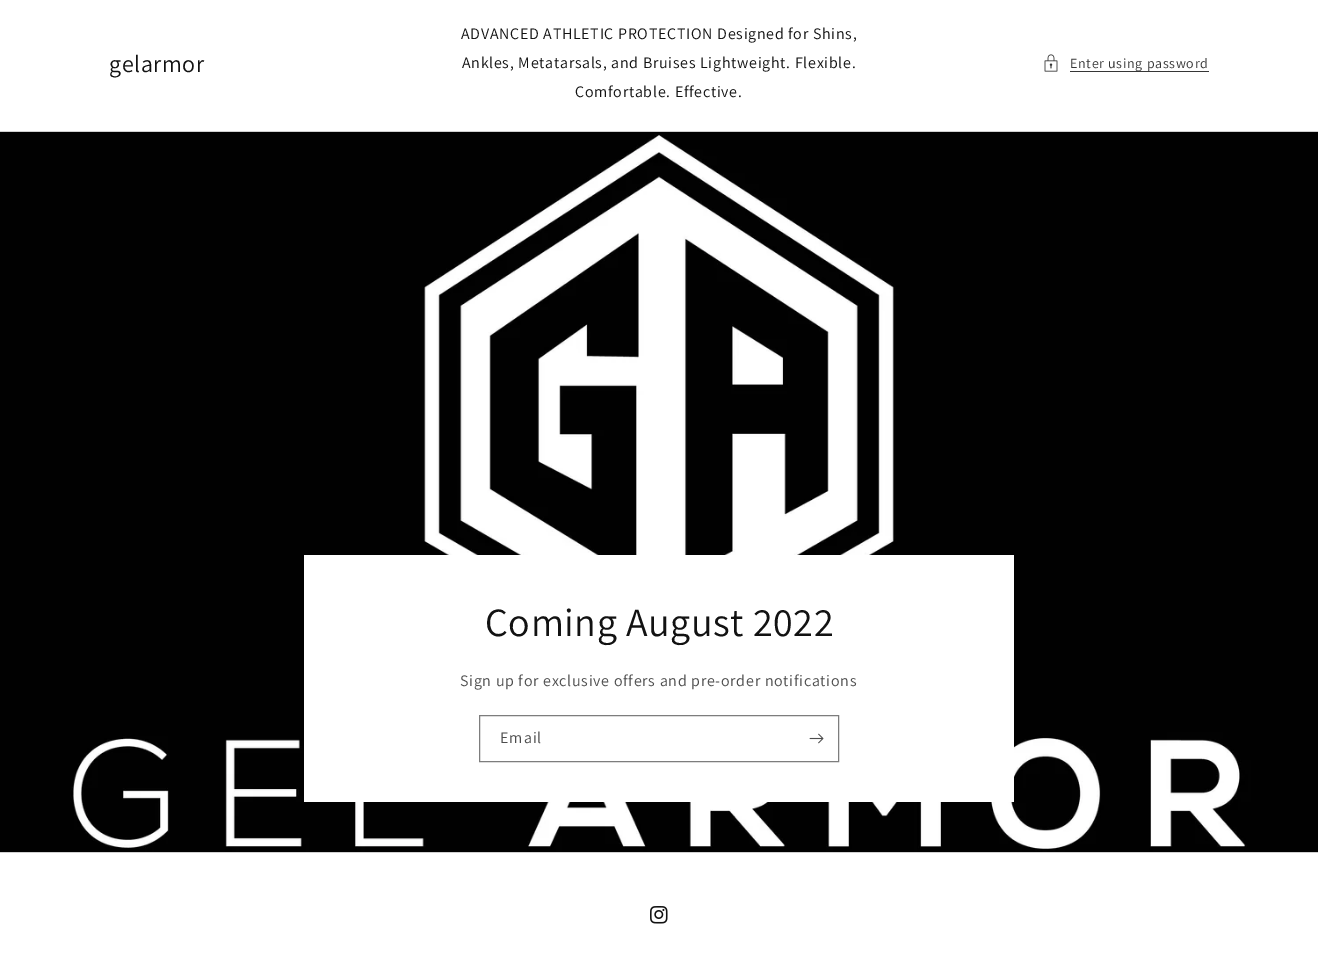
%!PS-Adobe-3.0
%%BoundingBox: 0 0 1318 962
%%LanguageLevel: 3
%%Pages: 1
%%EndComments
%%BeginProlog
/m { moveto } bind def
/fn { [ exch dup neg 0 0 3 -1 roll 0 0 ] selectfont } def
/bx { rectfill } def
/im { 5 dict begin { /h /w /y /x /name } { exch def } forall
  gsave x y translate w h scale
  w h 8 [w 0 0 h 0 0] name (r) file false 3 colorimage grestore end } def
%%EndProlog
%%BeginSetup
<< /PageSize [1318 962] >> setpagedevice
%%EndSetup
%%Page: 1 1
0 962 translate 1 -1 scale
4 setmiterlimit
1 setgray
0 0 1318 962 bx
/Assistant-Regular 24 fn
0.071 setgray
109 72 m 0.6 0 (gelarmor) ashow
/Assistant-Regular 16 fn
461 39 m 0.7 0 (ADVANCED ATHLETIC PROTECTION Designed for Shins,) ashow
462 68 m 0.7 0 (Ankles, Metatarsals, and Bruises Lightweight. Flexible.) ashow
575 97 m 0.7 0 (Comfortable. Effective.) ashow
(image0.raw) 1044 54 14 18 im
0.212 setgray
1070 71 139 1 bx
/Assistant-Regular 14 fn
0.208 setgray
1070 68 m 0.7 0 (Enter using password) ashow
0.816 setgray
0 131 1318 1 bx
(image1.raw) 0 132 1318 720 im
1 setgray
304 555 710 247 bx
/Assistant-Regular 40 fn
0.071 setgray
485 636 m 0.6 0 (Coming August 2022) ashow
/Assistant-Regular 16 fn
0.302 setgray
460 686 m 0.7 0 (Sign up for exclusive offers and pre-order notifications) ashow
0.49 setgray
479.5 715.5 359 46 rectstroke
0.302 setgray
500 743 m 1 0 (Email) ashow
(image2.raw) 809 733 15 11 im
0.816 setgray
0 852 1318 1 bx
(image3.raw) 650 906 18 18 im
showpage
%%EOF
